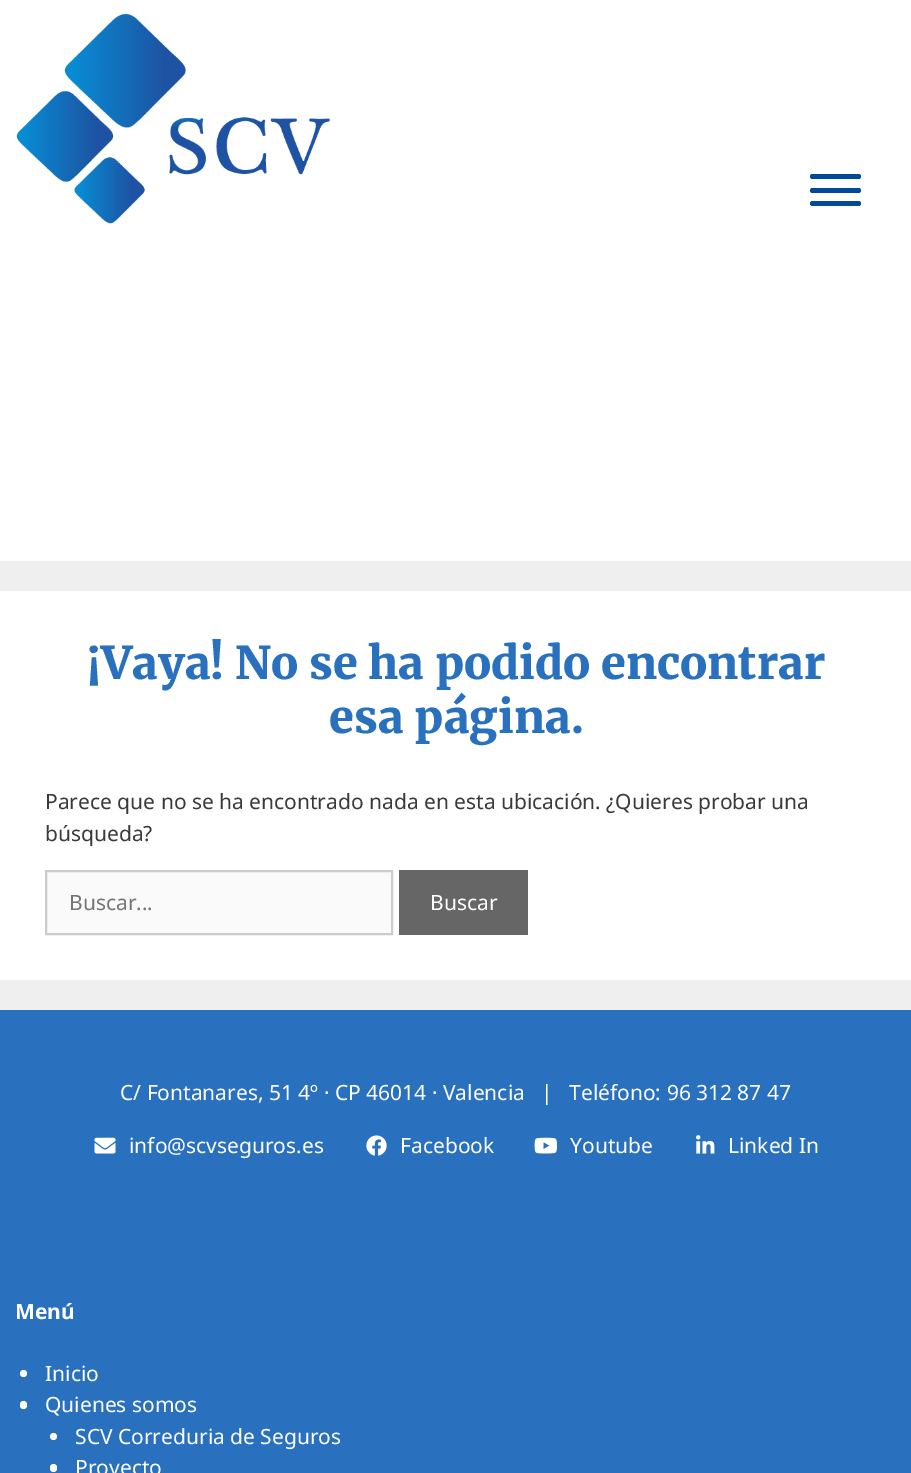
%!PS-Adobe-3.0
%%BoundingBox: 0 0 911 1473
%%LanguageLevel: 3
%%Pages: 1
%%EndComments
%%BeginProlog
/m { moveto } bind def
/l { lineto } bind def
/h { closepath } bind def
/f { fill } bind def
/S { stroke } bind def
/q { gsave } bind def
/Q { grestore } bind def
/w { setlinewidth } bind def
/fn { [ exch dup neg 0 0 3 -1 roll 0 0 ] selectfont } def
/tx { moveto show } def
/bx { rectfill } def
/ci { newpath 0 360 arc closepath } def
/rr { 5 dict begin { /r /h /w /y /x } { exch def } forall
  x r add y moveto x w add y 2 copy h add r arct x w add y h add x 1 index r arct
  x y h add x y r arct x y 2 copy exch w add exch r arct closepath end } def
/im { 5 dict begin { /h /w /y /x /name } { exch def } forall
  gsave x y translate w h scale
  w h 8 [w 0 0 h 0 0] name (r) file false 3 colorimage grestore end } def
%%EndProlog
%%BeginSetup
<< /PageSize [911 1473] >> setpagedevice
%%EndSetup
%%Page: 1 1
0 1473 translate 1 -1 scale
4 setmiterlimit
0.937 setgray
0 0 911 1473 bx
1 setgray
0 0 911 561 bx
(image0.raw) 16 13 314 211 im
0 0.29 0.6 setrgbcolor
810 188 51 5 2.5 rr f
810 174 51 5 2.5 rr f
810 201 51 5 2.5 rr f
1 setgray
0 591 911 389 bx
/Merriweather-Black 45 fn
0.161 0.443 0.745 setrgbcolor
(¡Vaya! No se ha podido encontrar) 87 679 tx
(esa página.) 329 733 tx
/NotoSans-Regular 21 fn
0.227 setgray
(Parece que no se ha encontrado nada en esta ubicación. ¿Quieres probar una) 45 809 tx
(búsqueda?) 45 841 tx
0.98 setgray
46 871 m 392 871 l 392 934 l 46 934 l h q f Q
0.8 setgray
2 w
S
0.459 setgray
(Buscar...) 69 910 tx
0.4 setgray
399 870 129 65 bx
1 setgray
(Buscar) 430 910 tx
0.161 0.443 0.745 setrgbcolor
0 1010 911 463 bx
1 setgray
(C/ Fontanares, 51 4º · CP 46014 · Valencia   |   Teléfono: 96 312 87 47) 120 1100 tx
(image1.raw) 94 1137 22 17 im
(info@scvseguros.es) 129 1153 tx
(image2.raw) 366 1135 21 21 im
(Facebook) 400 1153 tx
(image3.raw) 534 1137 23 17 im
(Youtube) 570 1153 tx
(image4.raw) 696 1135 19 19 im
(Linked In) 728 1153 tx
/NotoSans-Bold 21 fn
(Menú) 15 1319 tx
23.5 1373.5 3.5 ci f
/NotoSans-Regular 21 fn
(Inicio) 45 1381 tx
20 1401 7 8 3.5 rr f
(Quienes somos) 45 1412 tx
53.5 1436.5 3.5 ci f
(SCV Correduria de Seguros) 75 1444 tx
50 1464 7 8 3.5 rr f
(Proyecto) 75 1475 tx
showpage
%%EOF
